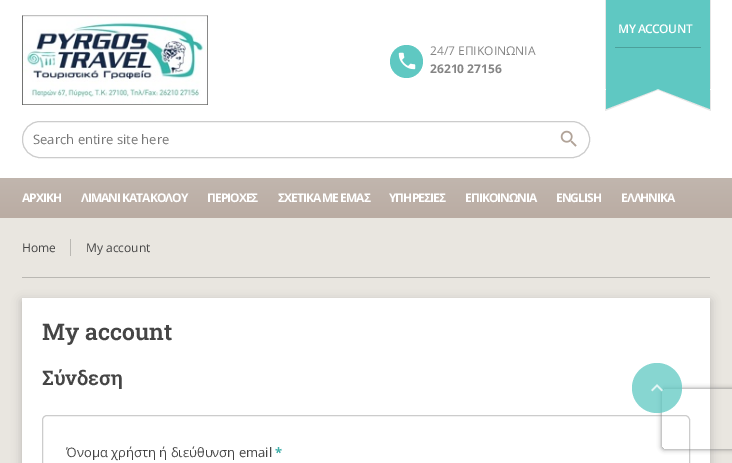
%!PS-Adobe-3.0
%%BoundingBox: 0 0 732 463
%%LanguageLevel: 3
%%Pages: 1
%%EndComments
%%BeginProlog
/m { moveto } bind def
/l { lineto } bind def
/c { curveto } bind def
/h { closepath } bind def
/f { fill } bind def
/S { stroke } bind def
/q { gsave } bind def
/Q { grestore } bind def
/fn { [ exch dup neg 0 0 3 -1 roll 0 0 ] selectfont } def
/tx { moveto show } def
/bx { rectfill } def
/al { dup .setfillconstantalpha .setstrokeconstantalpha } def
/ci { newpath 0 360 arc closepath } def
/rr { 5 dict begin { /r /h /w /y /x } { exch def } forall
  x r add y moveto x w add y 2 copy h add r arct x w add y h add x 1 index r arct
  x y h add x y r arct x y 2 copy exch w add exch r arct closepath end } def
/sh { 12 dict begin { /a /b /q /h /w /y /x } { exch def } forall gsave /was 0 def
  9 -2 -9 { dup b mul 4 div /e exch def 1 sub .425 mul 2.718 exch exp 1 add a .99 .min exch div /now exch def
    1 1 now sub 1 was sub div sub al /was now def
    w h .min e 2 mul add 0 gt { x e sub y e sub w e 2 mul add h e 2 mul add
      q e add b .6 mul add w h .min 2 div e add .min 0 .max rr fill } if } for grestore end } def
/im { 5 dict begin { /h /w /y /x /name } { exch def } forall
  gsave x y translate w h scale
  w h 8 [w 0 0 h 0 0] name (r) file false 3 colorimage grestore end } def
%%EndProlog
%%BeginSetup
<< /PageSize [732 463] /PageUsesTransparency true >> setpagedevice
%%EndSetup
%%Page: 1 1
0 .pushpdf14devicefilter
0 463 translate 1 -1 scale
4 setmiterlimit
0.914 0.902 0.878 setrgbcolor
0 0 732 463 bx
1 setgray
0 0 732 178 bx
(image0.raw) 22 15 186 90 im
0.902 setgray
605 0 1 89 bx
710 0 1 89 bx
0.373 0.784 0.761 setrgbcolor
606 0 104 89 bx
0.298 0.627 0.608 setrgbcolor
615 47 86 1 bx
/OpenSans-SemiBold 12 fn
1 setgray
618 33 m -0.5 0 (MY ACCOUNT) ashow
0.902 setgray
605 90 m 658 90 l 605 111 l h f
711 90 m 711 111 l 658 90 l h f
0.373 0.784 0.761 setrgbcolor
606 89 m 658 89 l 606 109 l h f
710 89 m 710 109 l 658 89 l h f
406.5 61.5 16.5 ci f
(image1.raw) 398 52 18 18 im
/OpenSans-Regular 12 fn
0.522 setgray
(24/7 ΕΠΙΚΟΙΝΩΝΙΑ) 430 55 tx
/OpenSans-Bold 12 fn
(26210 27156) 430 73 tx
0.8 setgray
22.5 121.5 567 36 17.5 rr S
/OpenSans-Regular 13 fn
0.459 setgray
(Search entire site here) 33 144 tx
(image2.raw) 560 130 17 17 im
q 0 178 m 732 178 l 732 218 l 0 218 l h clip newpath
<< /ShadingType 2 /ColorSpace /DeviceRGB /Coords [366 178 366 218] /Extend [true true] /Function << /FunctionType 2 /Domain [0 1] /C0 [0.757 0.714 0.682] /C1 [0.729 0.675 0.639] /N 1 >> >> shfill Q
/OpenSans-Bold 12 fn
1 setgray
22 202 m -1 0 (ΑΡΧΙΚΗ) ashow
81 202 m -1 0 (ΛΙΜΑΝΙ ΚΑΤΑΚΟΛΟΥ) ashow
207 202 m -1 0 (ΠΕΡΙΟΧΕΣ) ashow
278 202 m -1 0 (ΣΧΕΤΙΚΑ ΜΕ ΕΜΑΣ) ashow
389 202 m -1 0 (ΥΠΗΡΕΣΙΕΣ) ashow
465 202 m -1 0 (ΕΠΙΚΟΙΝΩΝΙΑ) ashow
556 202 m -1 0 (ENGLISH) ashow
621 202 m -1 0 (ΕΛΛΗΝΙΚΑ) ashow
0.729 0.722 0.702 setrgbcolor
22 277 688 1 bx
/OpenSans-Regular 12 fn
0.271 setgray
(Home) 22 252 tx
0.729 0.722 0.702 setrgbcolor
70 239 1 17 bx
0.271 setgray
(My account) 86 252 tx
0 setgray
22 301 688 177 0 5 0.2 sh
1 setgray
22 298 688 165 bx
/RobotoSlab-SemiBold 23 fn
0.271 setgray
(My account) 42 340 tx
/RobotoSlab-SemiBold 20 fn
(Σύνδεση) 42 385 tx
0.8 setgray
42.5 415.5 647 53 4.5 rr S
/OpenSans-Regular 13 fn
0.271 setgray
(Όνομα χρήστη ή διεύθυνση email) 66 457 tx
/OpenSans-Bold 13 fn
0.255 0.686 0.667 setrgbcolor
(*) 275 457 tx
q
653 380 m 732 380 l 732 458 l 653 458 l h 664 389 m 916 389 l 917 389 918 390 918 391 c 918 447 l 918 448 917 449 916 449 c 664 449 l 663 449 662 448 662 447 c 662 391 l 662 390 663 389 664 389 c h eoclip newpath
0.502 setgray
662 389 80 60 2 2.5 1 sh
Q
0.75 al
0.373 0.784 0.761 setrgbcolor
657 388 25 ci f
1 al
(image3.raw) 651 384 12 8 im
.poppdf14devicefilter showpage
%%EOF
